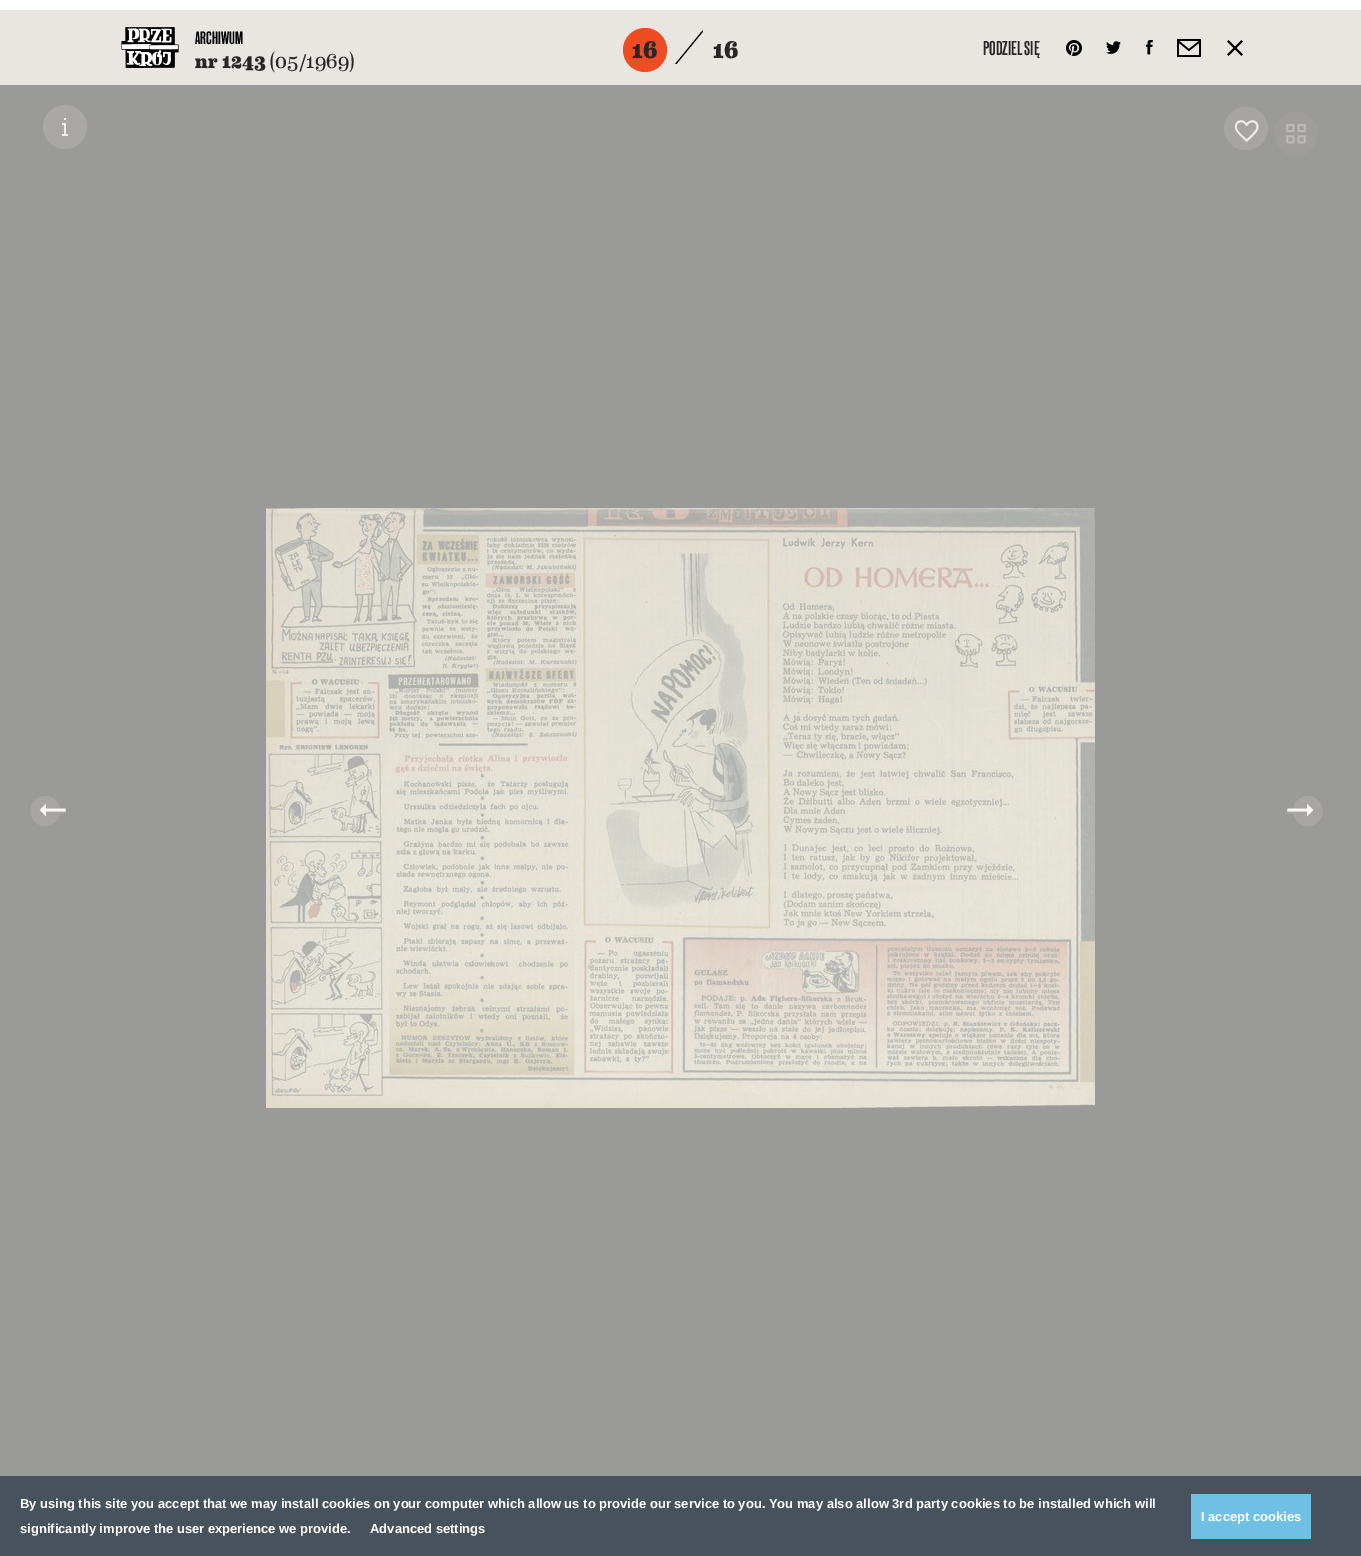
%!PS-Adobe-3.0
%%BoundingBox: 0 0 1361 1556
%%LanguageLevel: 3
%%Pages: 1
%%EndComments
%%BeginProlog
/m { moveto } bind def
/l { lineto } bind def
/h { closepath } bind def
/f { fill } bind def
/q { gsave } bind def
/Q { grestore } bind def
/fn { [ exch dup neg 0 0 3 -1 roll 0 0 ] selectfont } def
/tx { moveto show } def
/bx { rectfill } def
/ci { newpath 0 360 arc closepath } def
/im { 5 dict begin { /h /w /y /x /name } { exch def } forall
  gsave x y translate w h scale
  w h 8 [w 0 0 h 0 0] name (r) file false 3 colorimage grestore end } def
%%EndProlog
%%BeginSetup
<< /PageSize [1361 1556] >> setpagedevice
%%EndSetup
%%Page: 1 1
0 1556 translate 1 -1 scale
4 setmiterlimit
0.604 0.604 0.596 setrgbcolor
0 0 1361 1556 bx
1 setgray
0 0 1361 10 bx
0.914 0.898 0.878 setrgbcolor
0 10 1361 75 bx
(image0.raw) 121 27 58 41 im
/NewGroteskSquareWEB-Medium 18 fn
0 setgray
(ARCHIWUM) 195 44 tx
/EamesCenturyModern-ExtraBold 20 fn
0.161 0.149 0.149 setrgbcolor
(nr 1243) 195 68 tx
/EamesCenturyModern-Regular 20 fn
(\(05/1969\)) 270 68 tx
0.937 0.298 0.141 setrgbcolor
645 50 22 ci f
/EamesCenturyModern-ExtraBold 24 fn
0.161 0.149 0.149 setrgbcolor
(16) 632 58 tx
q
671 25 32 39 rectclip
0 setgray
702.5 30.5 m 703.5 31 l 672 69.5 l 671 69 l h f
Q
(16) 713 58 tx
/NewGroteskSquareWEB-Medium 20 fn
(PODZIEL SIĘ) 983 55 tx
(image1.raw) 1066 40 16 16 im
(image2.raw) 1106 41 15 13 im
(image3.raw) 1146 40 7 15 im
(image4.raw) 1177 39 24 18 im
(image5.raw) 1227 40 16 16 im
0.667 0.659 0.655 setrgbcolor
65 127 22 ci f
0.945 0.933 0.922 setrgbcolor
64 123 m 66 123 l 66 135 l 64 135 l h 64 118 m 66 118 l 66 120 l 64 120 l h 62 123 m 64 123 l 64 125 l 62 125 l h f
62 134 6 2 bx
(image6.raw) 1224 106 44 44 im
(image7.raw) 1274 112 44 44 im
(image8.raw) 266 508 829 600 im
(image9.raw) 30 796 36 30 im
(image10.raw) 1287 796 36 30 im
0.278 0.322 0.365 setrgbcolor
0 1476 1361 80 bx
/LiberationSans-Bold 13 fn
1 setgray
(By using this site you accept that we may install cookies on your computer which allow us to provide our service to you. You may also allow 3rd party cookies to be installed which will) 20 1508 tx
(significantly improve the user experience we provide.) 20 1533 tx
(Advanced settings) 370 1533 tx
0.431 0.757 0.894 setrgbcolor
1191 1494 120 45 bx
1 setgray
(I accept cookies) 1201 1521 tx
showpage
%%EOF
